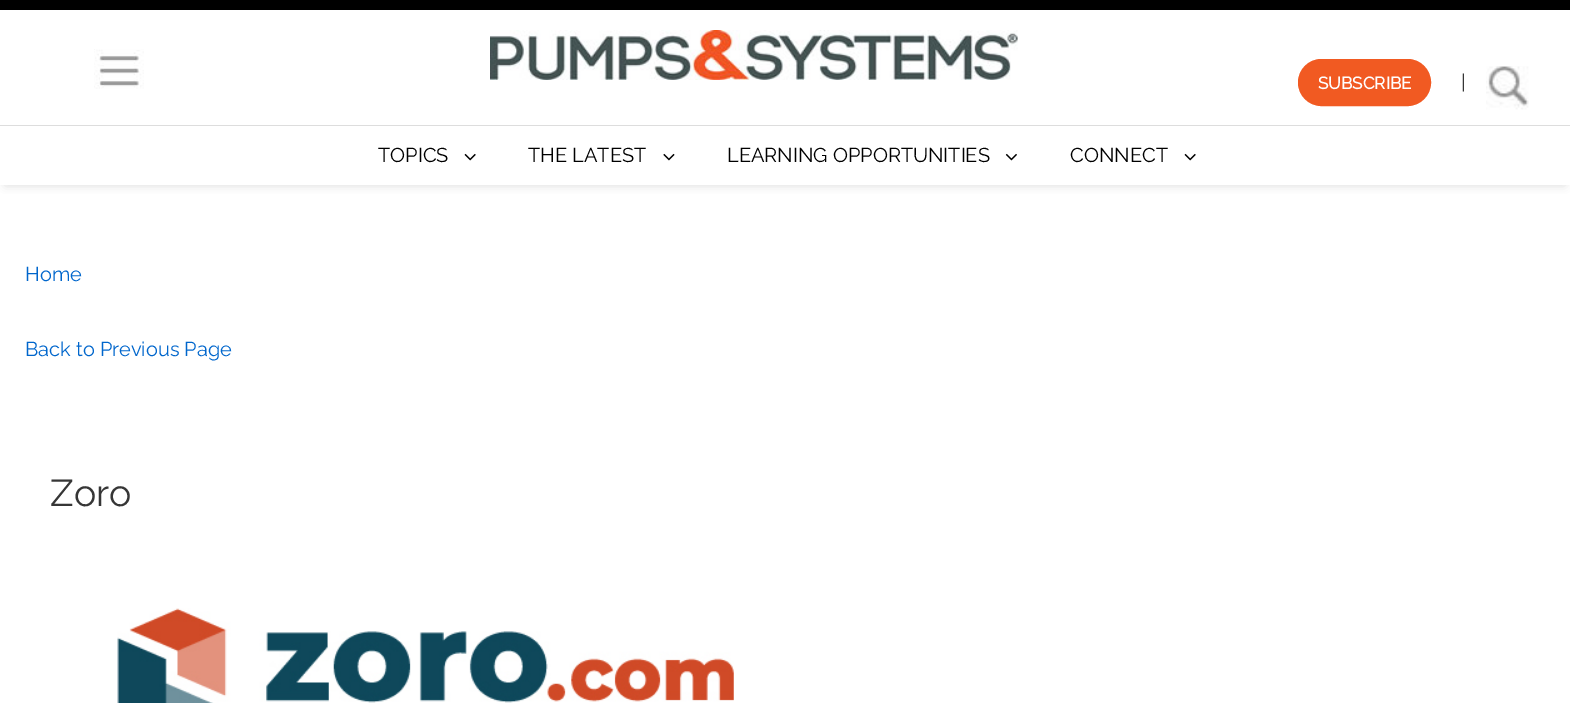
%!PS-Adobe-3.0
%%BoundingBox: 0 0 1570 703
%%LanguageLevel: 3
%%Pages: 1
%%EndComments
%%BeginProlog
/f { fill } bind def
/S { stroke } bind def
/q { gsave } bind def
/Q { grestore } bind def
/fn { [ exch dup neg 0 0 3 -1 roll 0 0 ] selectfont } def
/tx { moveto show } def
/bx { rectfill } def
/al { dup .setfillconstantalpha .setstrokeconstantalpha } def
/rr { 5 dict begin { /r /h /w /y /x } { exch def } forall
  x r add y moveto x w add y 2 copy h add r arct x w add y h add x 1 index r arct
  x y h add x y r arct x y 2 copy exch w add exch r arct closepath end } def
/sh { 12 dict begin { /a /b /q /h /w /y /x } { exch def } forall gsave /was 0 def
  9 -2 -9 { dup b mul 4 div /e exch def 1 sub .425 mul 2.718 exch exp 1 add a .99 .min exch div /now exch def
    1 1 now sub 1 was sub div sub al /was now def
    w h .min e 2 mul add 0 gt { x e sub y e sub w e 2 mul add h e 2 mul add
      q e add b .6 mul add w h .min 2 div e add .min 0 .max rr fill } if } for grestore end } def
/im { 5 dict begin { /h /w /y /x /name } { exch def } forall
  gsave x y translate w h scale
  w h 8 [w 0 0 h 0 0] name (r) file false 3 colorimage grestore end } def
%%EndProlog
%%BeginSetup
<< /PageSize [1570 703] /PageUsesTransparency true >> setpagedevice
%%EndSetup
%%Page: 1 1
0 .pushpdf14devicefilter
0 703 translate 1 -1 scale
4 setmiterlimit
1 setgray
0 0 1570 703 bx
0 setgray
0 0 1570 10 bx
(image0.raw) 94 49 50 40 im
(image1.raw) 490 30 528 50 im
0.945 0.353 0.133 setrgbcolor
1298.5 59.5 132 46 23 rr q f Q
S
/Raleway-Bold 17 fn
1 setgray
(SUBSCRIBE) 1318 89 tx
/Raleway-Thin 20 fn
0.212 setgray
(|) 1461 89 tx
(image2.raw) 1486 66 43 44 im
q
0 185 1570 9 rectclip
0.8 setgray
6 136 1558 48 0 5 1 sh
Q
0.867 setgray
0 125 1570 1 bx
0 setgray
(TOPICS) 378 162 tx
(image3.raw) 464 153 12 8 im
(THE LATEST) 528 162 tx
(image4.raw) 663 153 12 8 im
(LEARNING OPPORTUNITIES) 727 162 tx
(image5.raw) 1005 153 12 8 im
(CONNECT) 1070 162 tx
(image3.raw) 1184 153 12 8 im
0 0.4 0.8 setrgbcolor
(Home) 25 281 tx
(Back to Previous Page) 25 356 tx
/Raleway-Thin 37.5 fn
0.212 setgray
(Zoro) 50 506 tx
(image6.raw) 117 608 617 95 im
.poppdf14devicefilter showpage
%%EOF
